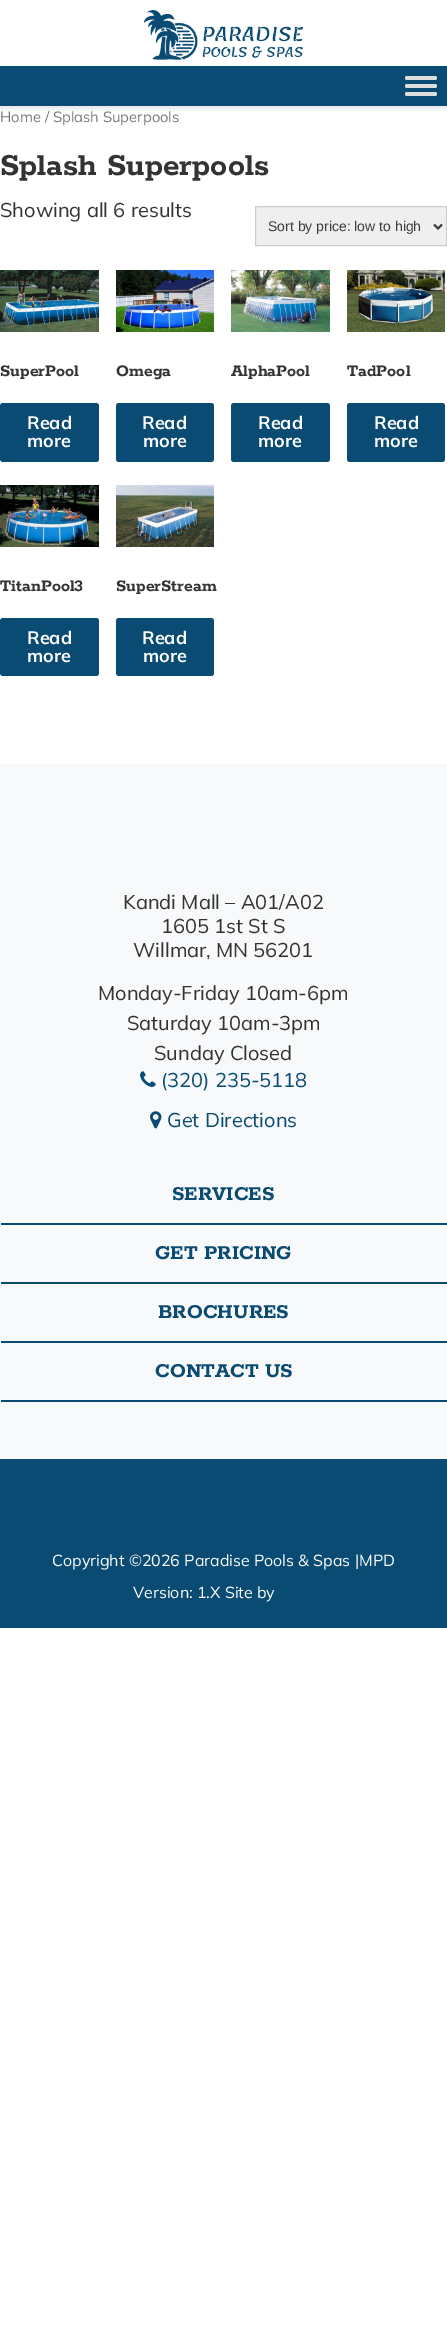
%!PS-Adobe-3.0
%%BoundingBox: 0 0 447 2333
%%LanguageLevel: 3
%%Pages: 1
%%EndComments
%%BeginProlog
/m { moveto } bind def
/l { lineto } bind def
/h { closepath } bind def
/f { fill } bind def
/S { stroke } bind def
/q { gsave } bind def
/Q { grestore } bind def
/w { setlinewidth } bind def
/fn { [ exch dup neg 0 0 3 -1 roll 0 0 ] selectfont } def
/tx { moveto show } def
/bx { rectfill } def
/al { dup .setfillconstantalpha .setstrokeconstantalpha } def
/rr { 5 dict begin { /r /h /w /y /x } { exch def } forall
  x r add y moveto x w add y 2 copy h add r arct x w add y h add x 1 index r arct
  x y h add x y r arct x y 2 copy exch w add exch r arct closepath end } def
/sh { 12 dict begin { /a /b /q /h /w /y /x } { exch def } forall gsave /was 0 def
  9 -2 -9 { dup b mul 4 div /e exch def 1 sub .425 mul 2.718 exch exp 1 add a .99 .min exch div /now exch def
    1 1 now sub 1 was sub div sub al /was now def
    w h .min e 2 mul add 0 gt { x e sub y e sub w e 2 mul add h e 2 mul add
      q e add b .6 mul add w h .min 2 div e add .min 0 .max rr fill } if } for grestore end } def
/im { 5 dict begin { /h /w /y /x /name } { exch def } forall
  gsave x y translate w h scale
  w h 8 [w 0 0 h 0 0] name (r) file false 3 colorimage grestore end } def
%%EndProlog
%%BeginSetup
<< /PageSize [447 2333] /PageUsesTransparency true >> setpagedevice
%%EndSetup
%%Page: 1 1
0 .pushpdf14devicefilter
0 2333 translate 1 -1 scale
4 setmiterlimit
1 setgray
0 0 447 2333 bx
q
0 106 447 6 rectclip
0 setgray
0 -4 447 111 0 4 0.16 sh
Q
(image0.raw) 144 10 159 50 im
0.039 0.294 0.451 setrgbcolor
0 66 447 40 bx
0.867 setgray
405 76 32 4 2 rr f
405 84 32 4 2 rr f
405 92 32 4 2 rr f
/Mulish-Regular 14.75 fn
0.463 setgray
(Home / Splash Superpools) 0 122 tx
/Rokkitt-Bold 34 fn
0.2 setgray
(Splash Superpools) 0 175 tx
/Mulish-Regular 20 fn
(Showing all 6 results) 0 217 tx
0.937 setgray
255.5 206.5 m 446.5 206.5 l 446.5 245.5 l 255.5 245.5 l h q f Q
0.8 setgray
S
0.235 setgray
2 w
434 224.5 m 438 228.5 l 442 224.5 l S
/LiberationSans-Regular 14 fn
(Sort by price: low to high) 268 231 tx
(image1.raw) 0 270 99 62 im
/Rokkitt-Bold 18 fn
0.2 setgray
(SuperPool) 0 376 tx
0.039 0.294 0.451 setrgbcolor
0 403 99 59 3 rr f
/Mulish-Bold 18 fn
1 setgray
(Read) 27 429 tx
(more) 27 447 tx
(image2.raw) 116 270 98 62 im
/Rokkitt-Bold 18 fn
0.2 setgray
(Omega) 116 376 tx
0.039 0.294 0.451 setrgbcolor
116 403 98 59 3 rr f
/Mulish-Bold 18 fn
1 setgray
(Read) 142 429 tx
(more) 143 447 tx
(image3.raw) 231 270 99 62 im
/Rokkitt-Bold 18 fn
0.2 setgray
(AlphaPool) 231 376 tx
0.039 0.294 0.451 setrgbcolor
231 403 99 59 3 rr f
/Mulish-Bold 18 fn
1 setgray
(Read) 258 429 tx
(more) 258 447 tx
(image4.raw) 347 270 98 62 im
/Rokkitt-Bold 18 fn
0.2 setgray
(TadPool) 347 376 tx
0.039 0.294 0.451 setrgbcolor
347 403 98 59 3 rr f
/Mulish-Bold 18 fn
1 setgray
(Read) 374 429 tx
(more) 374 447 tx
(image5.raw) 0 485 99 62 im
/Rokkitt-Bold 18 fn
0.2 setgray
(TitanPool3) 0 591 tx
0.039 0.294 0.451 setrgbcolor
0 618 99 58 3 rr f
/Mulish-Bold 18 fn
1 setgray
(Read) 27 644 tx
(more) 27 662 tx
(image6.raw) 116 485 98 62 im
/Rokkitt-Bold 18 fn
0.2 setgray
(SuperStream) 116 591 tx
0.039 0.294 0.451 setrgbcolor
116 618 98 58 3 rr f
/Mulish-Bold 18 fn
1 setgray
(Read) 142 644 tx
(more) 143 662 tx
0.969 0.976 0.984 setrgbcolor
0 764 447 695 bx
/Mulish-Regular 20 fn
0.2 setgray
(Kandi Mall – A01/A02) 123 909 tx
(1605 1st St S) 161 933 tx
(Willmar, MN 56201) 133 957 tx
(Monday-Friday 10am-6pm) 98 1000 tx
(Saturday 10am-3pm) 127 1030 tx
(Sunday Closed) 154 1060 tx
(image7.raw) 140 1071 16 16 im
0.039 0.294 0.451 setrgbcolor
(\(320\) 235-5118) 161 1087 tx
(image8.raw) 150 1111 12 18 im
(Get Directions) 167 1127 tx
/Rokkitt-Bold 22 fn
(SERVICES) 172 1200 tx
1 1223 446 2 bx
(GET PRICING) 155 1259 tx
1 1282 446 2 bx
(BROCHURES) 158 1318 tx
1 1341 446 2 bx
(CONTACT US) 155 1377 tx
1 1400 446 2 bx
0 1459 447 169 bx
/Mulish-Regular 16 fn
1 setgray
(Copyright ©2026 Paradise Pools & Spas |MPD) 52 1566 tx
(Version: 1.X Site by) 133 1598 tx
.poppdf14devicefilter showpage
%%EOF
